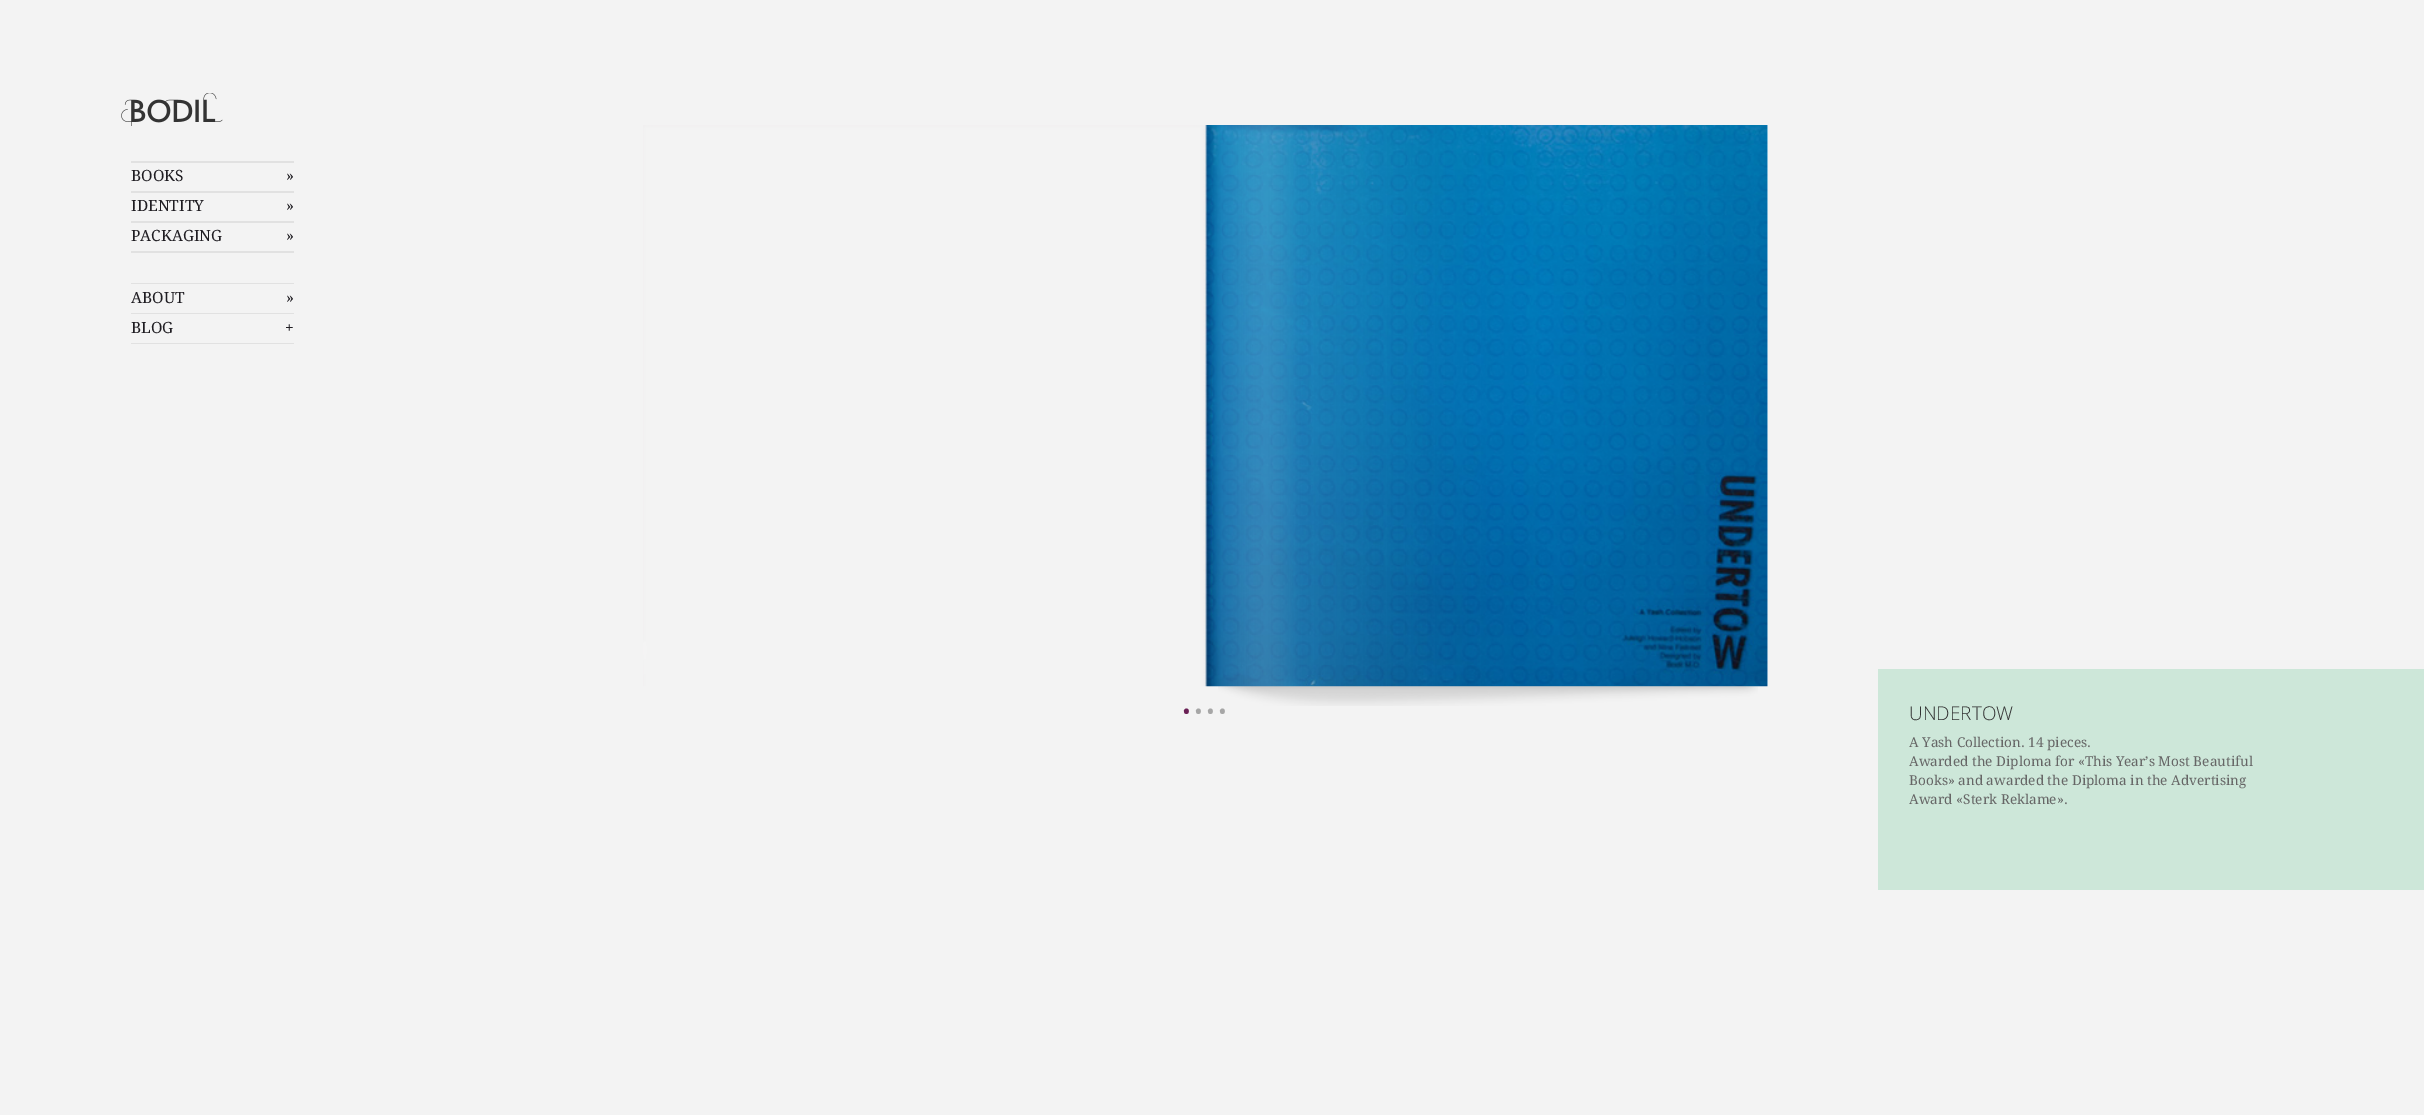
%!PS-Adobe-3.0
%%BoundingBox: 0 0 2424 1115
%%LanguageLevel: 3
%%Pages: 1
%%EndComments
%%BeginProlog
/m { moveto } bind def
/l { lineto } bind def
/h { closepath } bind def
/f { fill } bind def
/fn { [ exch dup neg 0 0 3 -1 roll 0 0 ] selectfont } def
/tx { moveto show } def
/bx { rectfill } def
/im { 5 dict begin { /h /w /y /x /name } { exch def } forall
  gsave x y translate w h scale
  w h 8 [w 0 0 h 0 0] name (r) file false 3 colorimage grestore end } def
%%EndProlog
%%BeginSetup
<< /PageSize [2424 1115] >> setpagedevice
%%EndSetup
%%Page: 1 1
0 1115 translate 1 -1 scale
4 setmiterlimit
0.953 setgray
0 0 2424 1115 bx
(image0.raw) 121 93 102 33 im
0.882 setgray
131 161 m 294 161 l 294 163 l 131 163 l h 131 191 m 294 191 l 294 193 l 131 193 l h f
/DroidSerif-Regular 15.5 fn
0.122 0.114 0.133 setrgbcolor
(BOOKS) 131 181 tx
(») 286 181 tx
0.953 setgray
131 191 m 131 196 l 294 196 l 300 207 l 294 218 l 131 218 l 131 223 l 300 223 l 300 191 l h f
0.882 setgray
131 191 m 294 191 l 294 193 l 131 193 l h 131 221 m 294 221 l 294 223 l 131 223 l h f
0.122 0.114 0.133 setrgbcolor
(IDENTITY) 131 211 tx
(») 286 211 tx
0.953 setgray
131 221 m 131 226 l 294 226 l 300 237 l 294 248 l 131 248 l 131 253 l 300 253 l 300 221 l h f
0.882 setgray
131 221 m 294 221 l 294 223 l 131 223 l h 131 251 m 294 251 l 294 253 l 131 253 l h f
0.122 0.114 0.133 setrgbcolor
(PACKAGING) 131 241 tx
(») 286 241 tx
0.882 setgray
131 283 m 294 283 l 294 284 l 131 284 l h 131 313 m 294 313 l 294 314 l 131 314 l h f
0.122 0.114 0.133 setrgbcolor
(ABOUT) 131 303 tx
(») 286 303 tx
0.953 setgray
131 313 m 131 317 l 294 317 l 300 328 l 294 339 l 131 339 l 131 344 l 300 344 l 300 313 l h f
0.882 setgray
131 313 m 294 313 l 294 314 l 131 314 l h 131 343 m 294 343 l 294 344 l 131 344 l h f
0.122 0.114 0.133 setrgbcolor
(BLOG) 131 333 tx
(+) 285 333 tx
/DroidSerif-Regular 19 fn
0.416 0.125 0.333 setrgbcolor
(•) 1183 718 tx
0.651 setgray
(• • •) 1195 718 tx
1 setgray
1767 125 1 561 bx
(image1.raw) 643 125 1125 562 im
(image2.raw) 1206 125 561 562 im
(image3.raw) 1218 686 540 20 im
0.804 0.906 0.851 setrgbcolor
1878 669 546 221 bx
/OpenSans-Light 19 fn
0.2 setgray
(UNDERTOW) 1909 720 tx
/DroidSerif-Regular 13.6 fn
0.4 setgray
(A Yash Collection. 14 pieces.) 1909 747 tx
(Awarded the Diploma for «This Year’s Most Beautiful) 1909 766 tx
(Books» and awarded the Diploma in the Advertising) 1909 785 tx
(Award «Sterk Reklame».) 1909 804 tx
showpage
%%EOF
